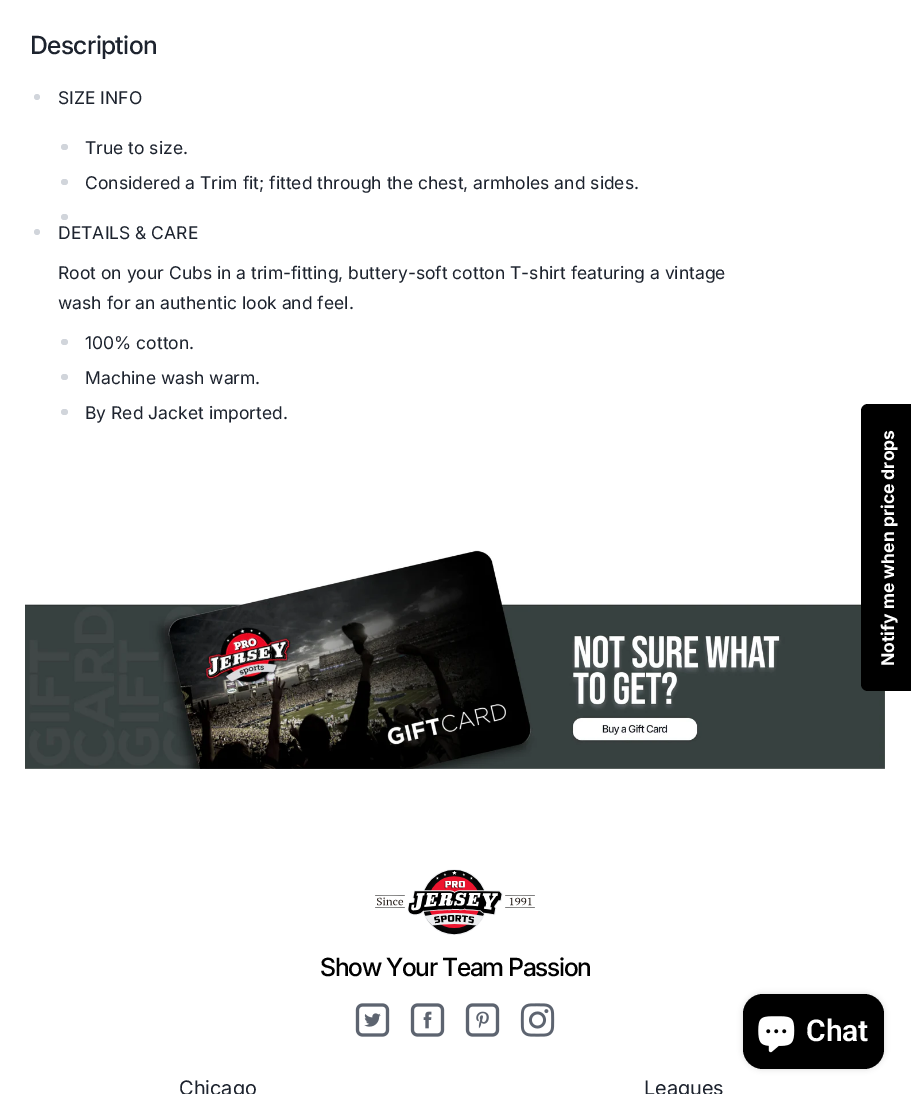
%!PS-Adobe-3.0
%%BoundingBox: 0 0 911 1094
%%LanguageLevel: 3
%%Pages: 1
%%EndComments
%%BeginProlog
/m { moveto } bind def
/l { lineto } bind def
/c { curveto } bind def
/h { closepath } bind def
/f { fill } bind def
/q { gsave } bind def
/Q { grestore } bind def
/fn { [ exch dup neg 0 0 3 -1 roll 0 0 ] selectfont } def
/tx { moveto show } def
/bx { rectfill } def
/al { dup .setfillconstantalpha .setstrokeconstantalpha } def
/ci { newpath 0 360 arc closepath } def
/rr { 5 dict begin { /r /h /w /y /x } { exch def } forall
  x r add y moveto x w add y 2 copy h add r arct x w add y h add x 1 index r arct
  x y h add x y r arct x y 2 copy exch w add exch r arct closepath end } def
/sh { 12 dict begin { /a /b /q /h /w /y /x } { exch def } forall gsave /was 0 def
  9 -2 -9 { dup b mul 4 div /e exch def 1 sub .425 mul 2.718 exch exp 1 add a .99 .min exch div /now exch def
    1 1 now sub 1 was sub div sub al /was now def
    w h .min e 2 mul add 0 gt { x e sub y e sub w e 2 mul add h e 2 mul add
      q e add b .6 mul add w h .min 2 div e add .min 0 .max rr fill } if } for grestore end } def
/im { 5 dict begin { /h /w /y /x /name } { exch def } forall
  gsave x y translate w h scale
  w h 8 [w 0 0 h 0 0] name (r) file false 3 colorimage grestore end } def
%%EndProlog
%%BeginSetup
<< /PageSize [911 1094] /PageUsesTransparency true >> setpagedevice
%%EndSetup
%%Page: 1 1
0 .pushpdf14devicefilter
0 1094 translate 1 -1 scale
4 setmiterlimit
1 setgray
0 0 911 1094 bx
/Inter-Medium 25 fn
0.114 0.137 0.18 setrgbcolor
30 54 m -0.6 0 (Description) ashow
0.82 0.835 0.859 setrgbcolor
37 97 3 ci f
/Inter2-Regular 17.5 fn
0.114 0.137 0.18 setrgbcolor
(SIZE INFO) 58 104 tx
0.82 0.835 0.859 setrgbcolor
61 144 7 6 3 rr f
0.114 0.137 0.18 setrgbcolor
(True to size.) 85 154 tx
0.82 0.835 0.859 setrgbcolor
61 179 7 6 3 rr f
0.114 0.137 0.18 setrgbcolor
(Considered a Trim fit; fitted through the chest, armholes and sides.) 85 189 tx
0.82 0.835 0.859 setrgbcolor
61 214 7 6 3 rr f
37 232 3 ci f
0.114 0.137 0.18 setrgbcolor
(DETAILS & CARE) 58 239 tx
(Root on your Cubs in a trim-fitting, buttery-soft cotton T-shirt featuring a vintage) 58 279 tx
(wash for an authentic look and feel.) 58 309 tx
0.82 0.835 0.859 setrgbcolor
61 339 7 6 3 rr f
0.114 0.137 0.18 setrgbcolor
(100% cotton.) 85 349 tx
0.82 0.835 0.859 setrgbcolor
61 374 7 6 3 rr f
0.114 0.137 0.18 setrgbcolor
(Machine wash warm.) 85 384 tx
0.82 0.835 0.859 setrgbcolor
61 409 7 6 3 rr f
0.114 0.137 0.18 setrgbcolor
(By Red Jacket imported.) 85 419 tx
(image0.raw) 25 550 860 219 im
0 setgray
861 684 m 861 411 l 861 407 864 404 868 404 c 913 404 l 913 691 l 868 691 l 864 691 861 688 861 684 c h f
/Inter-Bold 17.5 fn
1 setgray
q 894 666 translate -90 rotate 0 0 m (Notify me when price drops) show Q
(image1.raw) 375 869 160 66 im
/Inter-Medium 25 fn
0 setgray
320 976 m -1.25 0 (Show Your Team Passion) ashow
(image2.raw) 355 1003 35 34 im
(image3.raw) 410 1003 35 34 im
(image4.raw) 465 1003 35 34 im
(image5.raw) 520 1003 35 34 im
/Inter-Regular 20 fn
0.114 0.137 0.18 setrgbcolor
(Chicago) 179 1095 tx
(Leagues) 644 1095 tx
0 setgray
743 994 141 75 20 3 0.15 sh
743 994 141 75 20 rr f
(image6.raw) 758 1016 37 37 im
/Roboto-SemiBold 30 fn
1 setgray
(Chat) 806 1041 tx
.poppdf14devicefilter showpage
%%EOF
